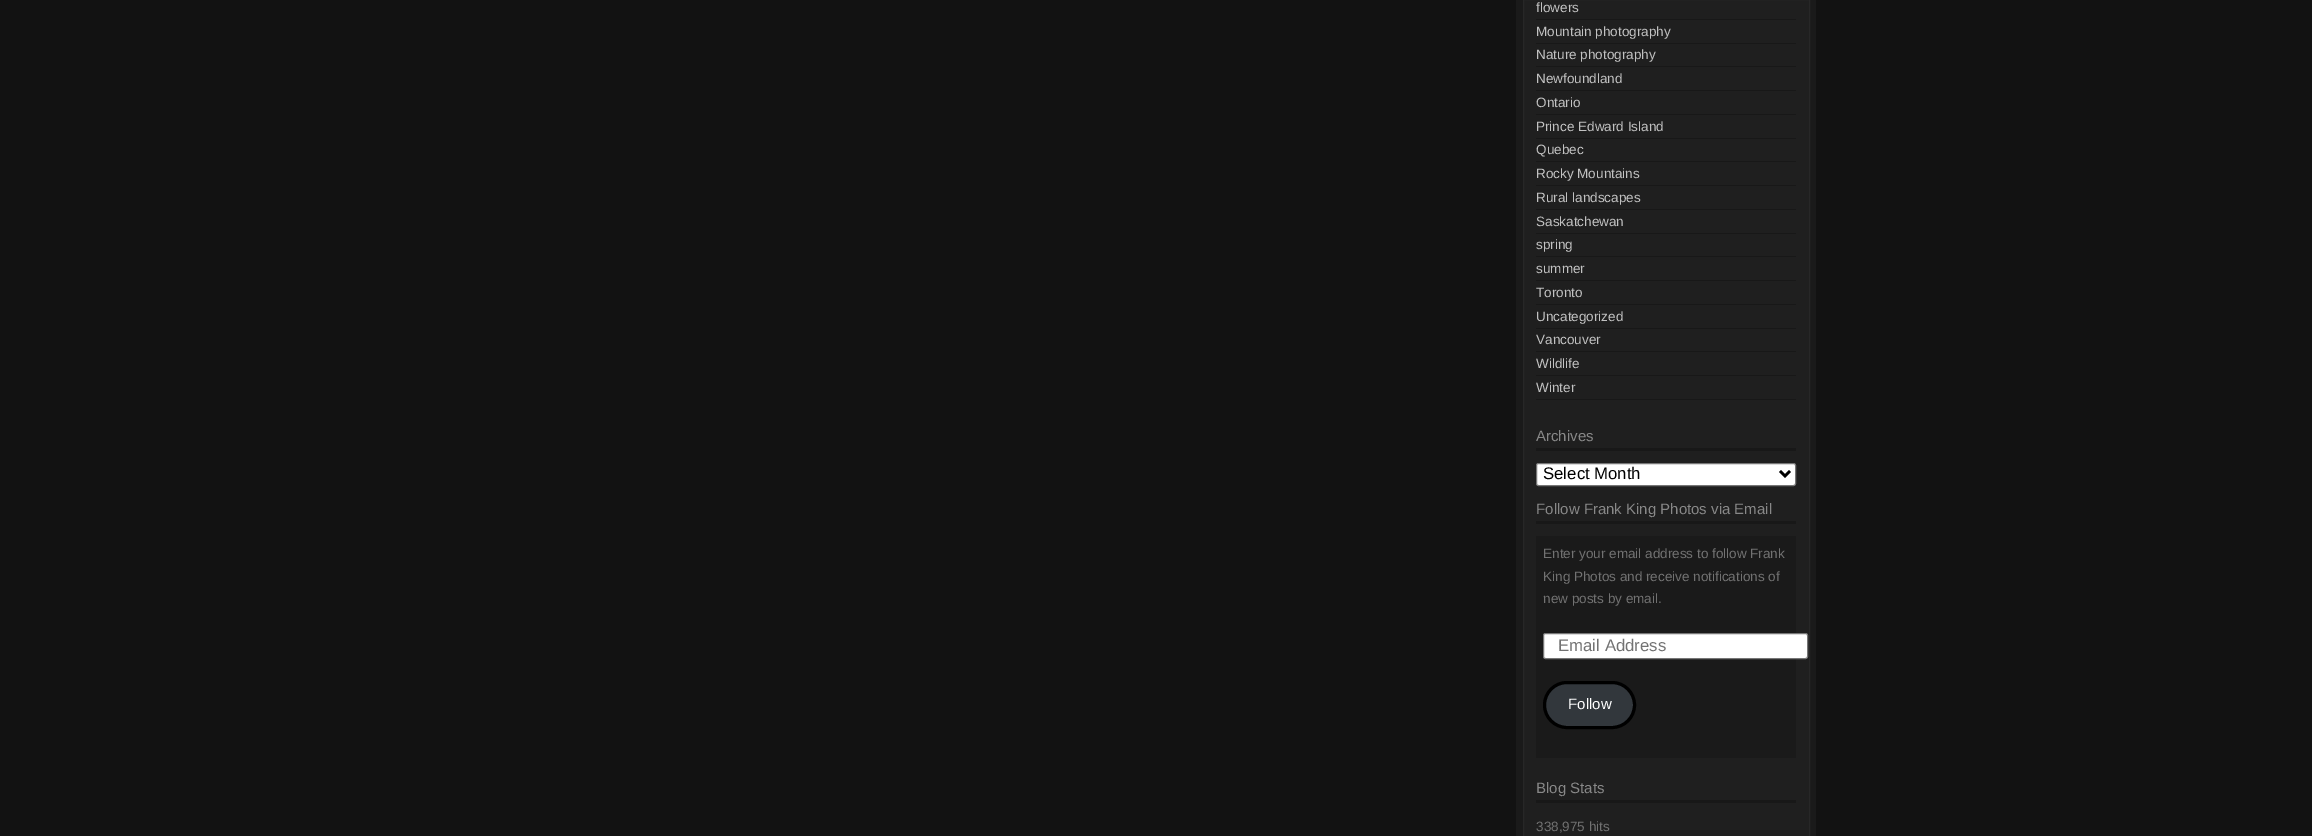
%!PS-Adobe-3.0
%%BoundingBox: 0 0 2312 836
%%LanguageLevel: 3
%%Pages: 1
%%EndComments
%%BeginProlog
/m { moveto } bind def
/l { lineto } bind def
/h { closepath } bind def
/f { fill } bind def
/S { stroke } bind def
/q { gsave } bind def
/Q { grestore } bind def
/w { setlinewidth } bind def
/fn { [ exch dup neg 0 0 3 -1 roll 0 0 ] selectfont } def
/tx { moveto show } def
/bx { rectfill } def
/rr { 5 dict begin { /r /h /w /y /x } { exch def } forall
  x r add y moveto x w add y 2 copy h add r arct x w add y h add x 1 index r arct
  x y h add x y r arct x y 2 copy exch w add exch r arct closepath end } def
%%EndProlog
%%BeginSetup
<< /PageSize [2312 836] >> setpagedevice
%%EndSetup
%%Page: 1 1
0 836 translate 1 -1 scale
4 setmiterlimit
0.071 setgray
0 0 2312 836 bx
0.102 setgray
1516 0 300 836 bx
0.122 setgray
1523.5 -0.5 m 1809.5 -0.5 l 1809.5 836.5 l 1523.5 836.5 l h q f Q
0.153 setgray
S
0.094 setgray
1536 19 260 1 bx
/LiberationSans-Regular 13.5 fn
0.761 setgray
(flowers) 1536 12 tx
0.094 setgray
1536 43 260 1 bx
0.761 setgray
(Mountain photography) 1536 36 tx
0.094 setgray
1536 66 260 1 bx
0.761 setgray
(Nature photography) 1536 59 tx
0.094 setgray
1536 90 260 1 bx
0.761 setgray
(Newfoundland) 1536 83 tx
0.094 setgray
1536 114 260 1 bx
0.761 setgray
(Ontario) 1536 107 tx
0.094 setgray
1536 138 260 1 bx
0.761 setgray
(Prince Edward Island) 1536 131 tx
0.094 setgray
1536 161 260 1 bx
0.761 setgray
(Quebec) 1536 154 tx
0.094 setgray
1536 185 260 1 bx
0.761 setgray
(Rocky Mountains) 1536 178 tx
0.094 setgray
1536 209 260 1 bx
0.761 setgray
(Rural landscapes) 1536 202 tx
0.094 setgray
1536 233 260 1 bx
0.761 setgray
(Saskatchewan) 1536 226 tx
0.094 setgray
1536 256 260 1 bx
0.761 setgray
(spring) 1536 249 tx
0.094 setgray
1536 280 260 1 bx
0.761 setgray
(summer) 1536 273 tx
0.094 setgray
1536 304 260 1 bx
0.761 setgray
(Toronto) 1536 297 tx
0.094 setgray
1536 328 260 1 bx
0.761 setgray
(Uncategorized) 1536 321 tx
0.094 setgray
1536 351 260 1 bx
0.761 setgray
(Vancouver) 1536 344 tx
0.094 setgray
1536 375 260 1 bx
0.761 setgray
(Wildlife) 1536 368 tx
0.094 setgray
1536 399 260 1 bx
0.761 setgray
(Winter) 1536 392 tx
0.094 setgray
1536 448 260 3 bx
/LiberationSans-Regular 15 fn
0.533 setgray
(Archives) 1536 441 tx
1 setgray
1536.5 463.5 259 22 2 rr q f Q
0.463 setgray
S
0 setgray
2.5 w
1780 471 m 1785 476 l 1790 471 l S
/LiberationSans-Regular 16.75 fn
(Select Month) 1543 479 tx
0.094 setgray
1536 521 260 3 bx
/LiberationSans-Regular 15 fn
0.533 setgray
(Follow Frank King Photos via Email) 1536 514 tx
0.102 setgray
1536 536 260 222 bx
/LiberationSans-Regular 13.5 fn
0.447 setgray
(Enter your email address to follow Frank) 1543 558 tx
(King Photos and receive notifications of) 1543 581 tx
(new posts by email.) 1543 603 tx
1 setgray
1543.5 633.5 264 25 2 rr q f Q
0.463 setgray
1 w
S
/LiberationSans-Regular 16.75 fn
0.447 setgray
(Email Address) 1558 651 tx
0.196 0.216 0.235 setrgbcolor
1544.5 682.5 90 45 22.5 rr q f Q
0 setgray
3 w
S
/LiberationSans-Regular 15 fn
1 setgray
(Follow) 1568 709 tx
0.094 setgray
1536 800 260 3 bx
0.533 setgray
(Blog Stats) 1536 793 tx
/LiberationSans-Regular 13.5 fn
0.447 setgray
(338,975 hits) 1536 831 tx
showpage
%%EOF
